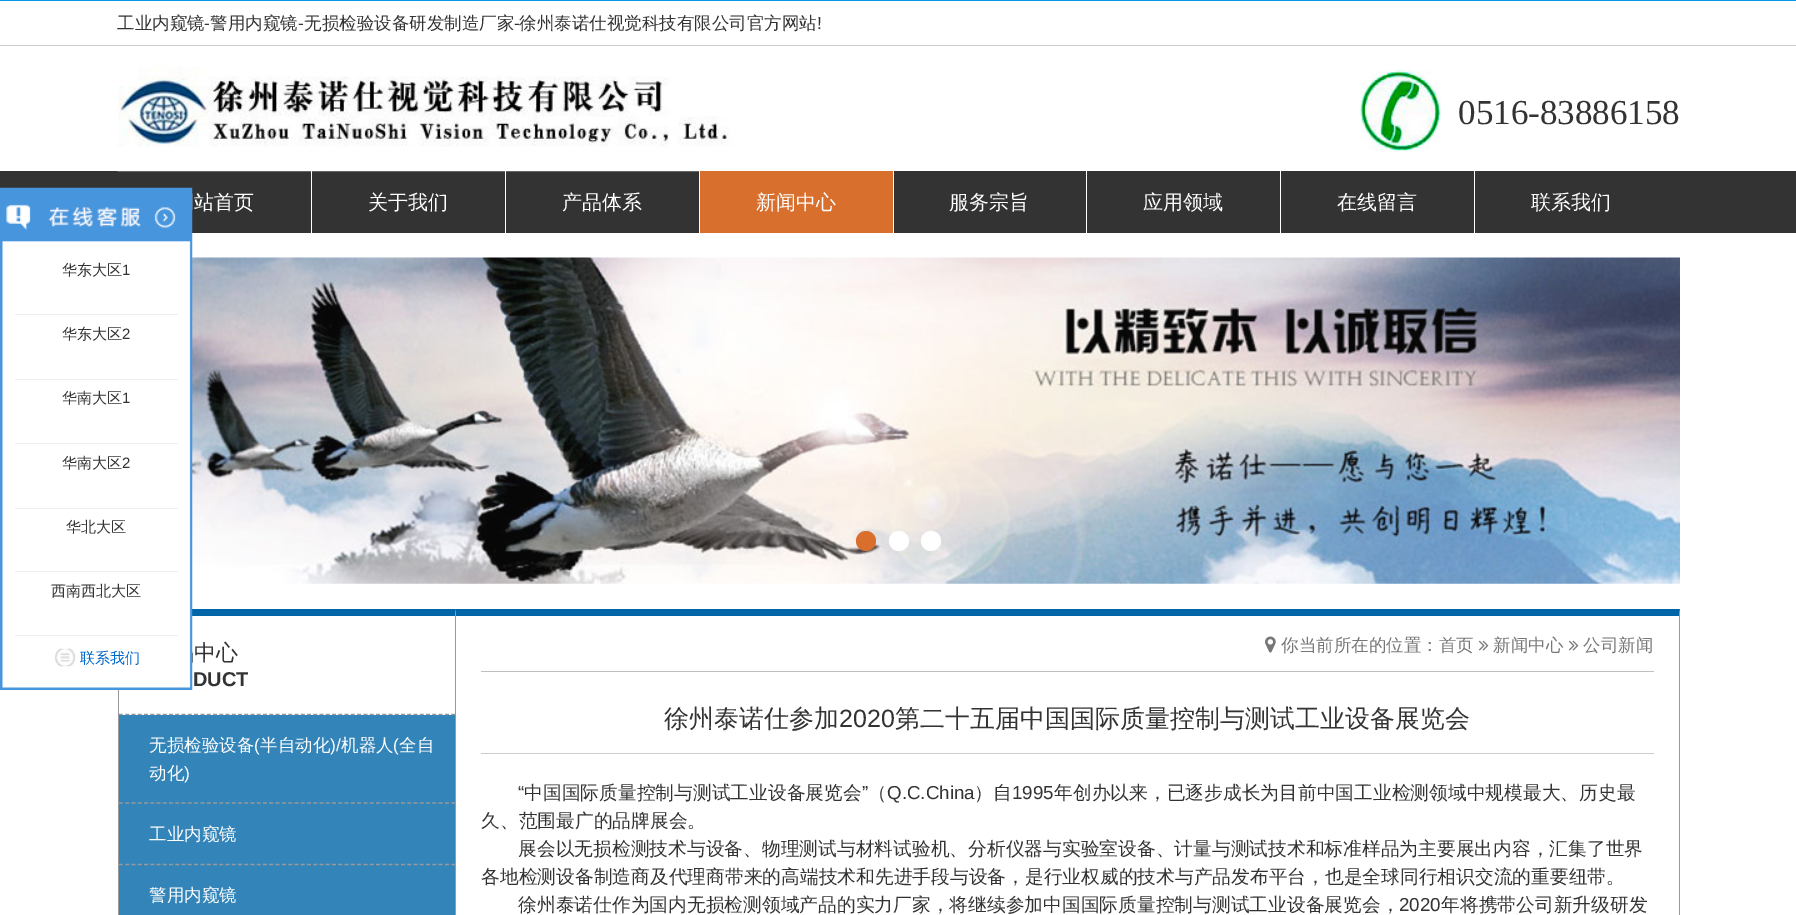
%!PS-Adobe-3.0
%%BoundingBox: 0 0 1796 915
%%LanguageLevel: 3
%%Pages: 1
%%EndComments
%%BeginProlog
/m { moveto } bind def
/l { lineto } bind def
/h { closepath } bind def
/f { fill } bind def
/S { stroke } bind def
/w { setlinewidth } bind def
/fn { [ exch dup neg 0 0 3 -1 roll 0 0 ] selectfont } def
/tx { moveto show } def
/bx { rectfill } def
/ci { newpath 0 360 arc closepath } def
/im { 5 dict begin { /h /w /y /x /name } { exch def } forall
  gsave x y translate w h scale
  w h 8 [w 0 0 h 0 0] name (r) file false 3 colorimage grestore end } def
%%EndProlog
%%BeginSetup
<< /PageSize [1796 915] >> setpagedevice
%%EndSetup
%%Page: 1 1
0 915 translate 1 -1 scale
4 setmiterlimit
1 setgray
0 0 1796 915 bx
0.027 0.584 0.914 setrgbcolor
0 0 1796 1 bx
0.8 setgray
0 45 1796 1 bx
/WenQuanYiZenHei-Medium 17.5 fn
0.2 setgray
(工业内窥镜) 117 29 tx
/LiberationSans-Regular 17.5 fn
(-) 204 29 tx
/WenQuanYiZenHei-Medium 17.5 fn
(警用内窥镜) 210 29 tx
/LiberationSans-Regular 17.5 fn
(-) 298 29 tx
/WenQuanYiZenHei-Medium 17.5 fn
(无损检验设备研发制造厂家) 304 29 tx
/LiberationSans-Regular 17.5 fn
(-) 514 29 tx
/WenQuanYiZenHei-Medium 17.5 fn
(徐州泰诺仕视觉科技有限公司官方网站) 519 29 tx
/LiberationSans-Regular 17.5 fn
(!) 817 29 tx
0 171 1796 62 bx
(image0.raw) 117 66 618 106 im
(image1.raw) 1360 70 81 81 im
/LiberationSerif-Regular 35 fn
(0516-83886158) 1458 124 tx
1 setgray
311 171 1 62 bx
/WenQuanYiZenHei-Medium 20 fn
(站首页) 194 209 tx
505 171 1 62 bx
(关于我们) 368 209 tx
699 171 1 62 bx
(产品体系) 562 209 tx
893 171 1 62 bx
0.851 0.435 0.173 setrgbcolor
700 171 193 62 bx
1 setgray
(新闻中心) 756 209 tx
1086 171 1 62 bx
(服务宗旨) 949 209 tx
1280 171 1 62 bx
(应用领域) 1143 209 tx
1474 171 1 62 bx
(在线留言) 1337 209 tx
(联系我们) 1531 209 tx
(image2.raw) 0 187 193 58 im
(image3.raw) 154 207 22 21 im
(image7.raw) 192 257 1488 327 im
0 0.4 0.659 setrgbcolor
192 609 263 7 bx
(image4.raw) 0 245 193 435 im
0.933 setgray
15 314 163 1 bx
/WenQuanYiZenHei-Medium 15 fn
0.2 setgray
(华东大区) 62 275 tx
/LiberationSans-Regular 15 fn
(1) 122 275 tx
0.933 setgray
15 379 163 1 bx
/WenQuanYiZenHei-Medium 15 fn
0.2 setgray
(华东大区) 62 339 tx
/LiberationSans-Regular 15 fn
(2) 122 339 tx
0.933 setgray
15 443 163 1 bx
/WenQuanYiZenHei-Medium 15 fn
0.2 setgray
(华南大区) 62 403 tx
/LiberationSans-Regular 15 fn
(1) 122 403 tx
0.933 setgray
15 508 163 1 bx
/WenQuanYiZenHei-Medium 15 fn
0.2 setgray
(华南大区) 62 468 tx
/LiberationSans-Regular 15 fn
(2) 122 468 tx
0.933 setgray
15 571 163 1 bx
/WenQuanYiZenHei-Medium 15 fn
0.2 setgray
(华北大区) 66 532 tx
0.933 setgray
15 635 163 1 bx
0.2 setgray
(西南西北大区) 51 596 tx
(image5.raw) 55 648 21 19 im
0 0.4 0.8 setrgbcolor
(联系我们) 80 663 tx
(image6.raw) 0 680 193 10 im
0.851 0.435 0.173 setrgbcolor
866 541 10 ci f
1 setgray
899 541 10 ci f
931 541 10 ci f
0.6 setgray
118 690 1 225 bx
1.2 w
[3.75 2.52] 0 setdash
119 714.5 m 455 714.5 l S
/WenQuanYiZenHei-Medium 22 fn
0.2 setgray
(中心) 194 660 tx
/LiberationSans-Bold 20 fn
(DUCT) 193 686 tx
0.2 0.522 0.725 setrgbcolor
119 715 336 200 bx
0.6 setgray
119 803 m 455 803 l S
/WenQuanYiZenHei-Medium 17.5 fn
1 setgray
(无损检验设备) 149 751 tx
/LiberationSans-Regular 17.5 fn
(\() 254 751 tx
/WenQuanYiZenHei-Medium 17.5 fn
(半自动化) 260 751 tx
/LiberationSans-Regular 17.5 fn
(\)/) 330 751 tx
/WenQuanYiZenHei-Medium 17.5 fn
(机器人) 341 751 tx
/LiberationSans-Regular 17.5 fn
(\() 393 751 tx
/WenQuanYiZenHei-Medium 17.5 fn
(全自) 399 751 tx
(动化) 149 779 tx
/LiberationSans-Regular 17.5 fn
(\)) 184 779 tx
0.6 setgray
119 864.5 m 455 864.5 l S
/WenQuanYiZenHei-Medium 17.5 fn
1 setgray
(工业内窥镜) 149 840 tx
(警用内窥镜) 149 901 tx
0 0.4 0.659 setrgbcolor
455 609 m 1680 609 l 1679 616 l 456 616 l h f
0.6 setgray
1680 609 m 1680 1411 l 1679 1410 l 1679 616 l h f
455 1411 m 455 609 l 456 616 l 456 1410 l h f
0.749 setgray
481 671 1173 1 bx
(image8.raw) 1265 636 11 17 im
0.467 setgray
(你当前所在的位置：首页) 1281 651 tx
(image9.raw) 1478 640 11 11 im
(新闻中心) 1493 651 tx
(image9.raw) 1568 640 11 11 im
(公司新闻) 1583 651 tx
0.8 setgray
481 753 1173 1 bx
/WenQuanYiZenHei-Medium 25 fn
0.2 setgray
(徐州泰诺仕参加) 664 727 tx
/LiberationSans-Regular 25 fn
(2020) 839 727 tx
/WenQuanYiZenHei-Medium 25 fn
(第二十五届中国国际质量控制与测试工业设备展览会) 895 727 tx
/LiberationSans-Regular 18.75 fn
(“) 518 799 tx
/WenQuanYiZenHei-Medium 18.75 fn
(中国国际质量控制与测试工业设备展览会) 524 799 tx
/LiberationSans-Regular 18.75 fn
(”) 862 799 tx
/WenQuanYiZenHei-Medium 18.75 fn
(（) 868 799 tx
/LiberationSans-Regular 18.75 fn
(Q.C.China) 887 799 tx
/WenQuanYiZenHei-Medium 18.75 fn
(）自) 974 799 tx
/LiberationSans-Regular 18.75 fn
(1995) 1012 799 tx
/WenQuanYiZenHei-Medium 18.75 fn
(年创办以来，已逐步成长为目前中国工业检测领域中规模最大、历史最) 1054 799 tx
(久、范围最广的品牌展会。) 481 827 tx
(展会以无损检测技术与设备、物理测试与材料试验机、分析仪器与实验室设备、计量与测试技术和标准样品为主要展出内容，汇集了世界) 518 855 tx
(各地检测设备制造商及代理商带来的高端技术和先进手段与设备，是行业权威的技术与产品发布平台，也是全球同行相识交流的重要纽带。) 481 883 tx
(徐州泰诺仕作为国内无损检测领域产品的实力厂家，将继续参加中国国际质量控制与测试工业设备展览会，) 518 911 tx
/LiberationSans-Regular 18.75 fn
(2020) 1399 911 tx
/WenQuanYiZenHei-Medium 18.75 fn
(年将携带公司新升级研发) 1441 911 tx
showpage
%%EOF
